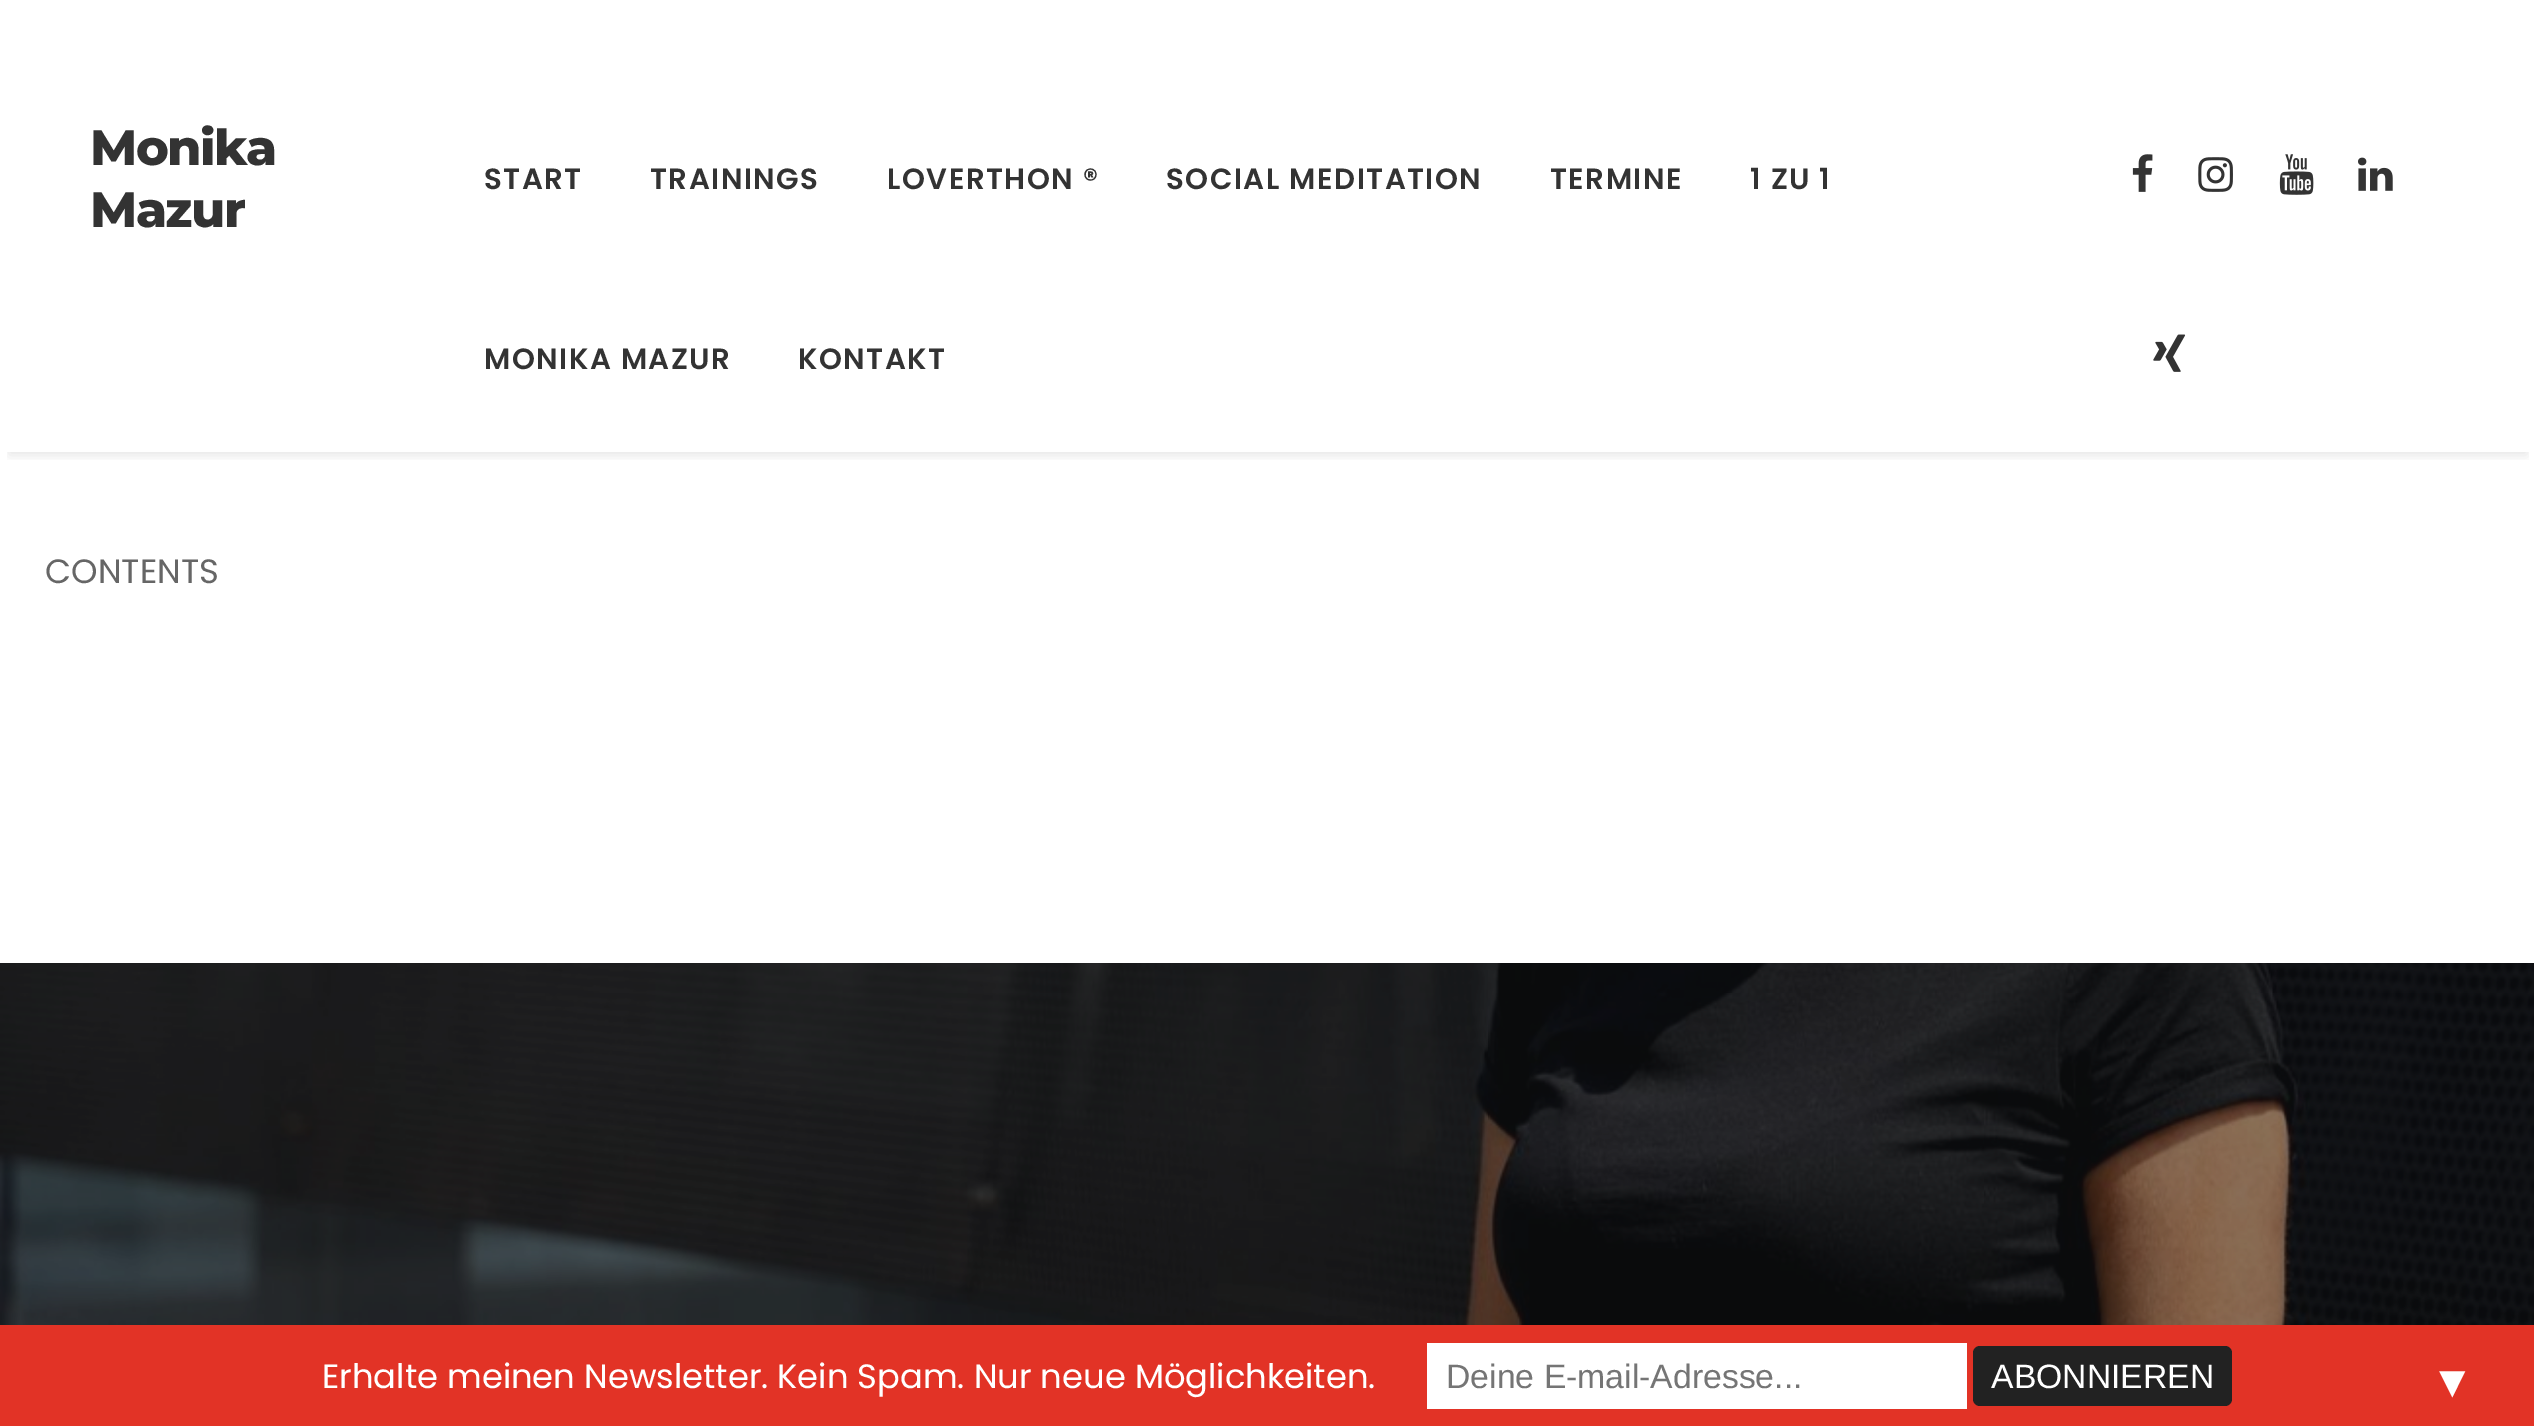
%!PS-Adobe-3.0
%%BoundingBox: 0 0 2534 1426
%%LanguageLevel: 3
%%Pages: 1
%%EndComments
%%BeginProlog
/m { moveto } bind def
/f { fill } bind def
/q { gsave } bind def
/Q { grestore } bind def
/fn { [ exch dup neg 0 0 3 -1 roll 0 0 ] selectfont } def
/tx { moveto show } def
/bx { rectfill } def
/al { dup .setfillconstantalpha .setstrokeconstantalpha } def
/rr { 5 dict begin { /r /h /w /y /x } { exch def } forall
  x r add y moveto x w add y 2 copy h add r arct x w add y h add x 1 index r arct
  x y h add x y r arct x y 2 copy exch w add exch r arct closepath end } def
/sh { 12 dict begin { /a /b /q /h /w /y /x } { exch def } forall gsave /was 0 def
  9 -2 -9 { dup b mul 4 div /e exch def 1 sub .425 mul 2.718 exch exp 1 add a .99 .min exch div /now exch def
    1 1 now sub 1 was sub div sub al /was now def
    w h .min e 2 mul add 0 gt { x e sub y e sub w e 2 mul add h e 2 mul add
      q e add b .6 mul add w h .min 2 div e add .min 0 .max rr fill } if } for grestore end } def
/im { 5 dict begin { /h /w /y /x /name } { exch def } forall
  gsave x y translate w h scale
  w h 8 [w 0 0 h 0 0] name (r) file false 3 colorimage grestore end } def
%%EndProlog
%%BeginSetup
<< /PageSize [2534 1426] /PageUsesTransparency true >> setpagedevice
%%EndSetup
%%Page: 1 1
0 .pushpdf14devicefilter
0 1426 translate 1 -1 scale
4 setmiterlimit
1 setgray
0 0 2534 1426 bx
q
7 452 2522 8 rectclip
0 setgray
9 20 2518 435 0 5.5 0.1 sh
Q
/Montserrat-ExtraBold 49.5 fn
0.2 setgray
90 165 m -1.5 0 (Monika) ashow
90 227 m -1.5 0 (Mazur) ashow
/Poppins-SemiBold 29.25 fn
484 189 m 1.5 0 (START) ashow
650 189 m 1.5 0 (TRAININGS) ashow
887 189 m 1.5 0 (LOVERTHON ®) ashow
1166 189 m 1.5 0 (SOCIAL MEDITATION) ashow
1550 189 m 1.5 0 (TERMINE) ashow
1750 189 m 1.5 0 (1 ZU 1) ashow
484 369 m 1.5 0 (MONIKA MAZUR) ashow
798 369 m 1.5 0 (KONTAKT) ashow
(image0.raw) 2132 154 21 38 im
(image1.raw) 2198 157 35 35 im
(image2.raw) 2279 154 35 41 im
(image3.raw) 2358 157 35 34 im
(image4.raw) 2153 334 33 38 im
/Poppins-Regular 33.75 fn
0.4 setgray
(CONTENTS) 45 583 tx
(image5.raw) 0 963 2534 362 im
0.886 0.2 0.149 setrgbcolor
0 1325 2534 101 bx
1 setgray
(Erhalte meinen Newsletter. Kein Spam. Nur neue Möglichkeiten.) 322 1388 tx
1427 1343 540 66 bx
/LiberationSans-Regular 33.75 fn
0.459 setgray
(Deine E-mail-Adresse...) 1446 1388 tx
0.133 setgray
1973 1346 259 60 7 rr f
1 setgray
(ABONNIEREN) 1991 1388 tx
/LiberationSerif-Regular 45 fn
(▼) 2430 1397 tx
.poppdf14devicefilter showpage
%%EOF
